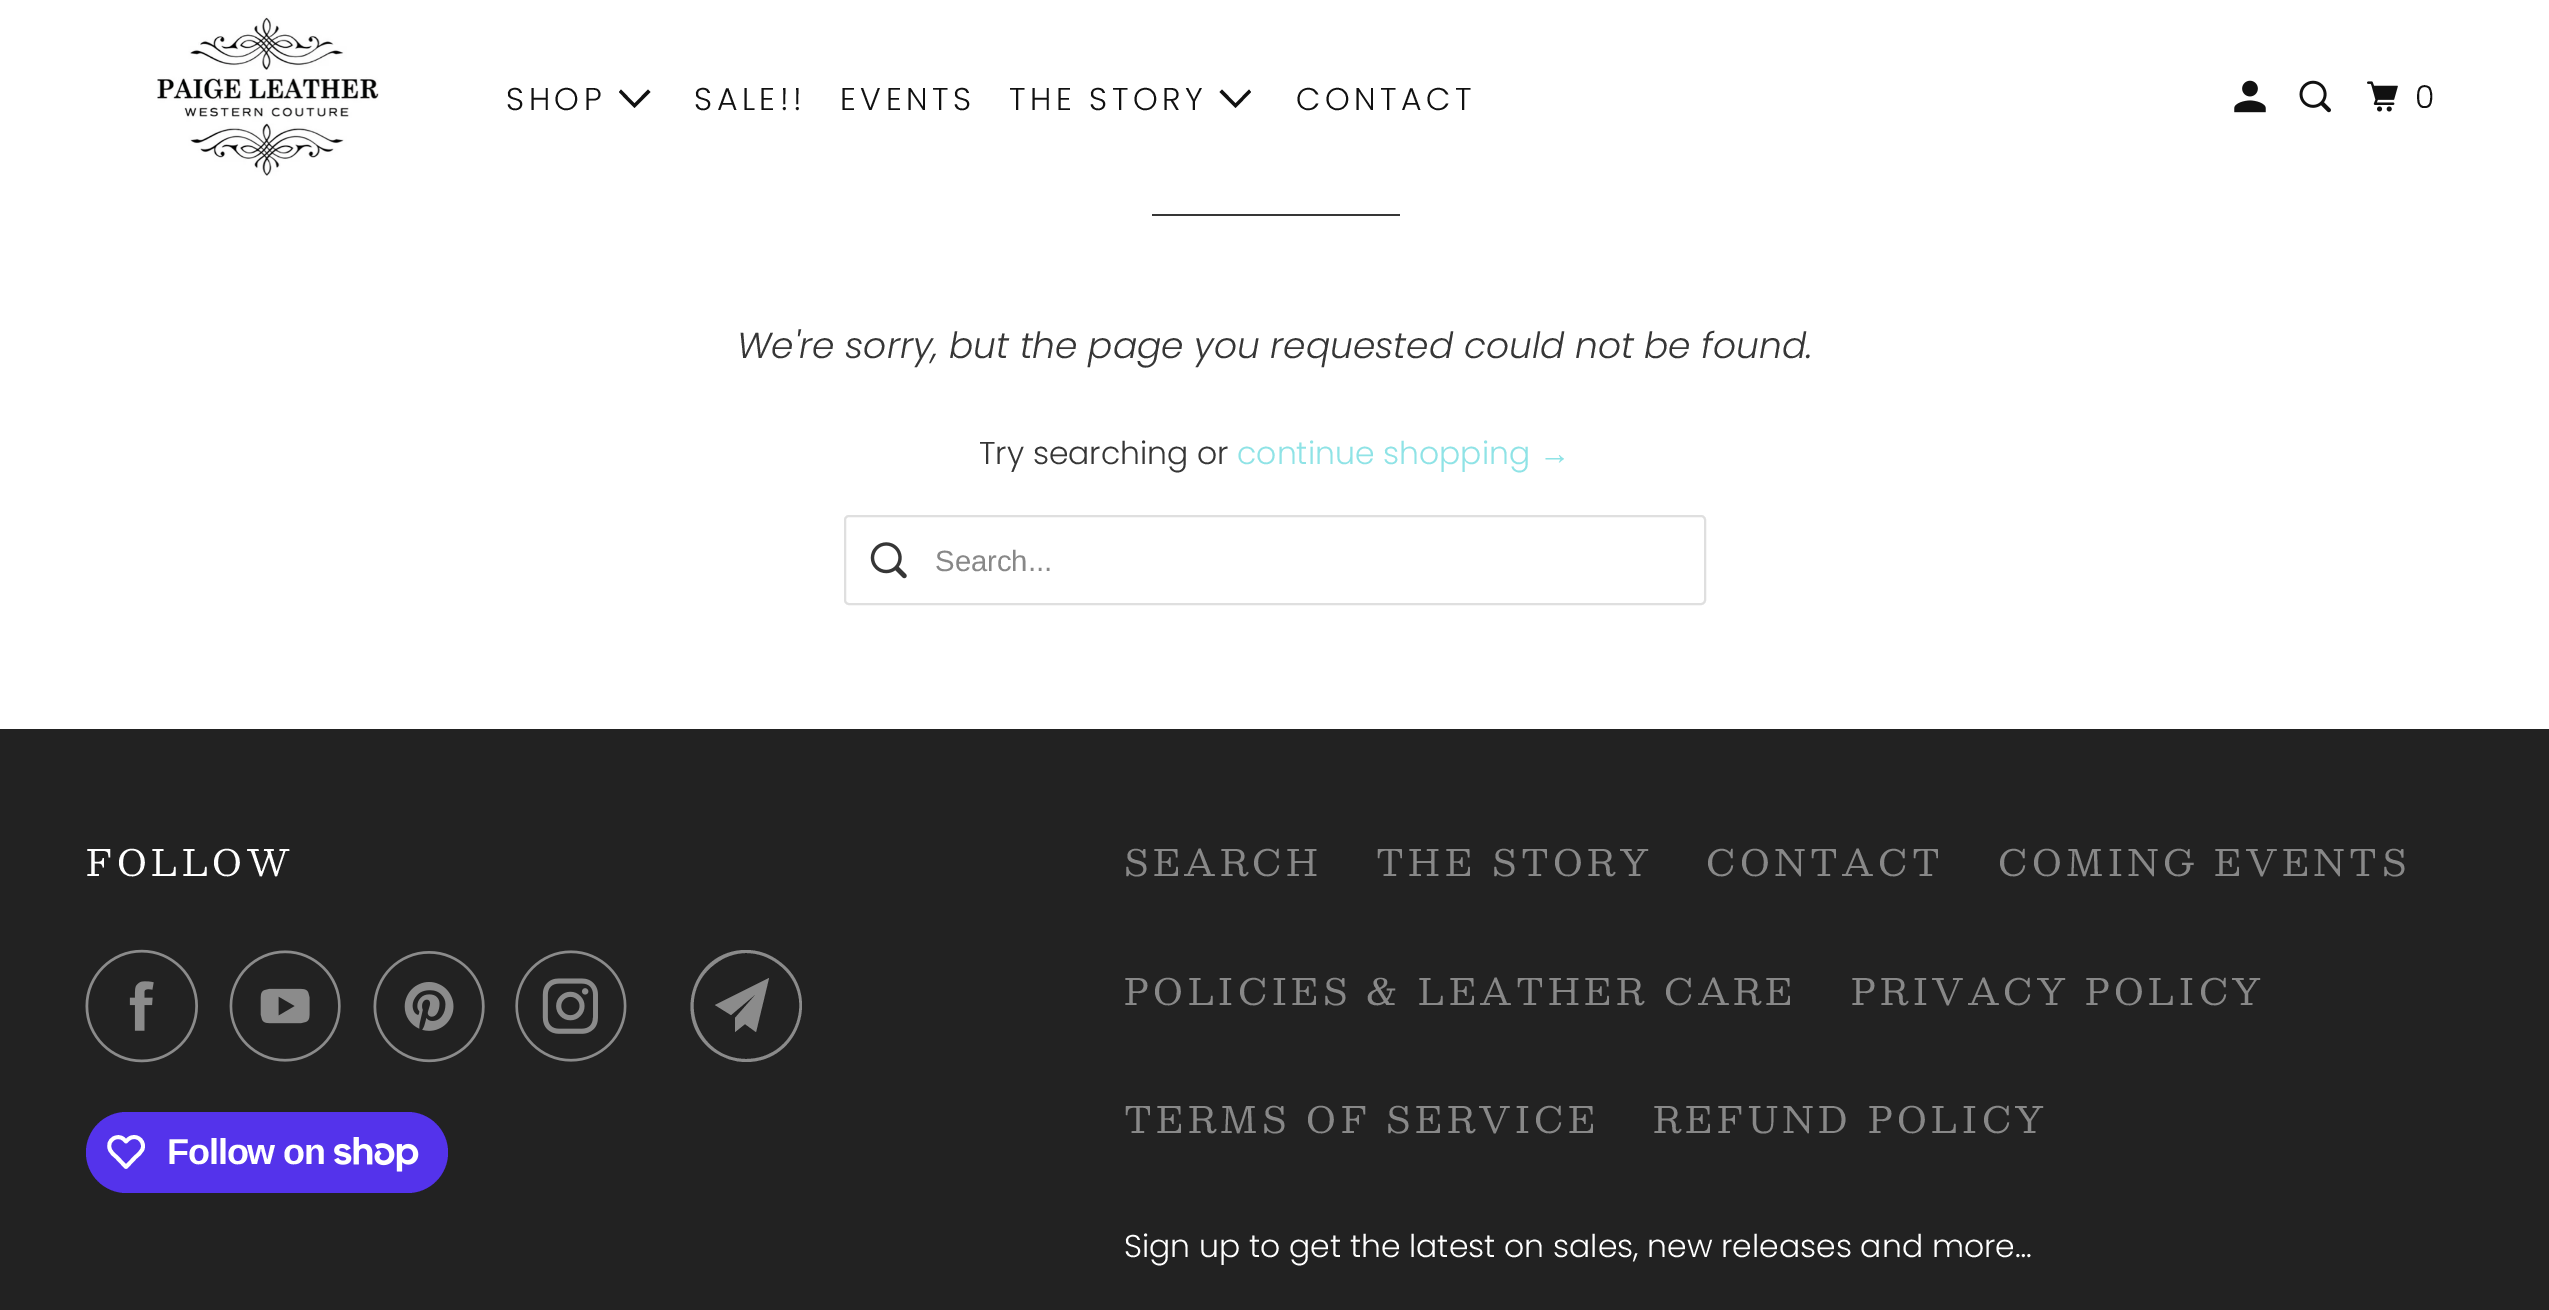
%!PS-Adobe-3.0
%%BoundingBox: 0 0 2549 1310
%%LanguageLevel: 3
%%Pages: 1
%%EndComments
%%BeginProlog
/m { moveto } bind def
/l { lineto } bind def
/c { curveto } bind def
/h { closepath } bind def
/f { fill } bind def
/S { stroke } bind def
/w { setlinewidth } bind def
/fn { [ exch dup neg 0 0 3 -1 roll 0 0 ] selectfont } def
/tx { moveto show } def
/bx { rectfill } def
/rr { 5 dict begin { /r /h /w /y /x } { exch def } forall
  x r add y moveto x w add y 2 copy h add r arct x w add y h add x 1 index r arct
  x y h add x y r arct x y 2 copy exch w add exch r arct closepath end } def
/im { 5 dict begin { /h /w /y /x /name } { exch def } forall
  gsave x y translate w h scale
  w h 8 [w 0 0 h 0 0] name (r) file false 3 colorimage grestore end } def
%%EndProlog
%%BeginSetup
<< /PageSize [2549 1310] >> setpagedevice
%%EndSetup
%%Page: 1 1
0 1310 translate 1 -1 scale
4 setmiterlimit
1 setgray
0 0 2549 1310 bx
(image0.raw) 157 16 222 160 im
/Poppins-Light 31.5 fn
0.067 setgray
506 110 m 4.5 0 (SHOP) ashow
626.5 100 m 619 92 l 621 89.5 l 634.5 103.5 l 648 89.5 l 650.5 92 l 634.5 108 l h f
694 110 m 4.5 0 (SALE!!) ashow
840 110 m 4.5 0 (EVENTS) ashow
1009 110 m 4.5 0 (THE STORY) ashow
1227.5 100 m 1219.5 92 l 1222 89.5 l 1235.5 103.5 l 1249 89.5 l 1251 92 l 1235.5 108 l h f
1296 110 m 4.5 0 (CONTACT) ashow
(image1.raw) 2234 80 32 33 im
(image2.raw) 2299 80 32 33 im
(image3.raw) 2367 81 31 31 im
2415 108 m 4.5 0 (0) ashow
0.212 setgray
1152 214 248 2 bx
/Poppins-LightItalic 36 fn
(We're sorry, but the page you requested could not be found.) 737 358 tx
/Poppins-Light 31.5 fn
(Try searching or) 979 464 tx
0.561 0.89 0.902 setrgbcolor
(continue shopping) 1237 464 tx
/LiberationSans-Regular 31.5 fn
(→) 1539 464 tx
0.875 setgray
2 w
845 516 860 88 4 rr S
(image4.raw) 870 542 37 37 im
/LiberationSans-Regular 29.25 fn
0.533 setgray
(Search...) 935 571 tx
0.133 setgray
0 729 2549 581 bx
/Besley-Regular 36 fn
1 setgray
86 876 m 4.5 0 (FOLLOW) ashow
(image5.raw) 85 949 113 114 im
(image6.raw) 229 950 112 112 im
(image7.raw) 373 951 112 112 im
(image8.raw) 515 950 112 112 im
0.545 setgray
756 1032 m 745 1024 l 735 1032 l 735 1018 l 757 993 l 731 1015 l 715 1005 l 769 978 l h 746 953 m 735 953 724 957 715 964 c 674 994 696 1059 746 1059 c 797 1059 819 994 778 964 c 769 957 758 953 746 953 c h 746 1062 m 734 1062 723 1058 713 1051 c 670 1019 693 950 746 950 c 758 950 770 954 780 962 c 822 993 800 1062 746 1062 c h f
0.329 0.2 0.922 setrgbcolor
86 1112 362 81 40.5 rr f
1 setgray
3.8 w
1 setlinejoin
124 1139.5 m 126 1141.5 l 127.5 1140 129 1138 131.5 1137.5 c 138.5 1135 145 1142.5 142.5 1149 c 141 1152.5 138 1155 135.5 1157 c 126 1167 l 116.5 1157 l 114 1155 111 1152.5 110 1149.5 c 106 1140.5 117.5 1133 124 1139.5 c h S
/LiberationSans-Bold 36 fn
167 1164 m -1.1 0 (Follow on) ashow
(image9.raw) 334 1137 85 35 im
/Besley-Regular 36 fn
0.533 setgray
1124 876 m 4.5 0 (SEARCH) ashow
1376 876 m 4.5 0 (THE STORY) ashow
1706 876 m 4.5 0 (CONTACT) ashow
1998 876 m 4.5 0 (COMING EVENTS) ashow
1124 1005 m 4.5 0 (POLICIES & LEATHER CARE) ashow
1851 1005 m 4.5 0 (PRIVACY POLICY) ashow
1124 1133 m 4.5 0 (TERMS OF SERVICE) ashow
1653 1133 m 4.5 0 (REFUND POLICY) ashow
/Poppins-Light 31.5 fn
1 setgray
(Sign up to get the latest on sales, new releases and more…) 1124 1257 tx
showpage
%%EOF
